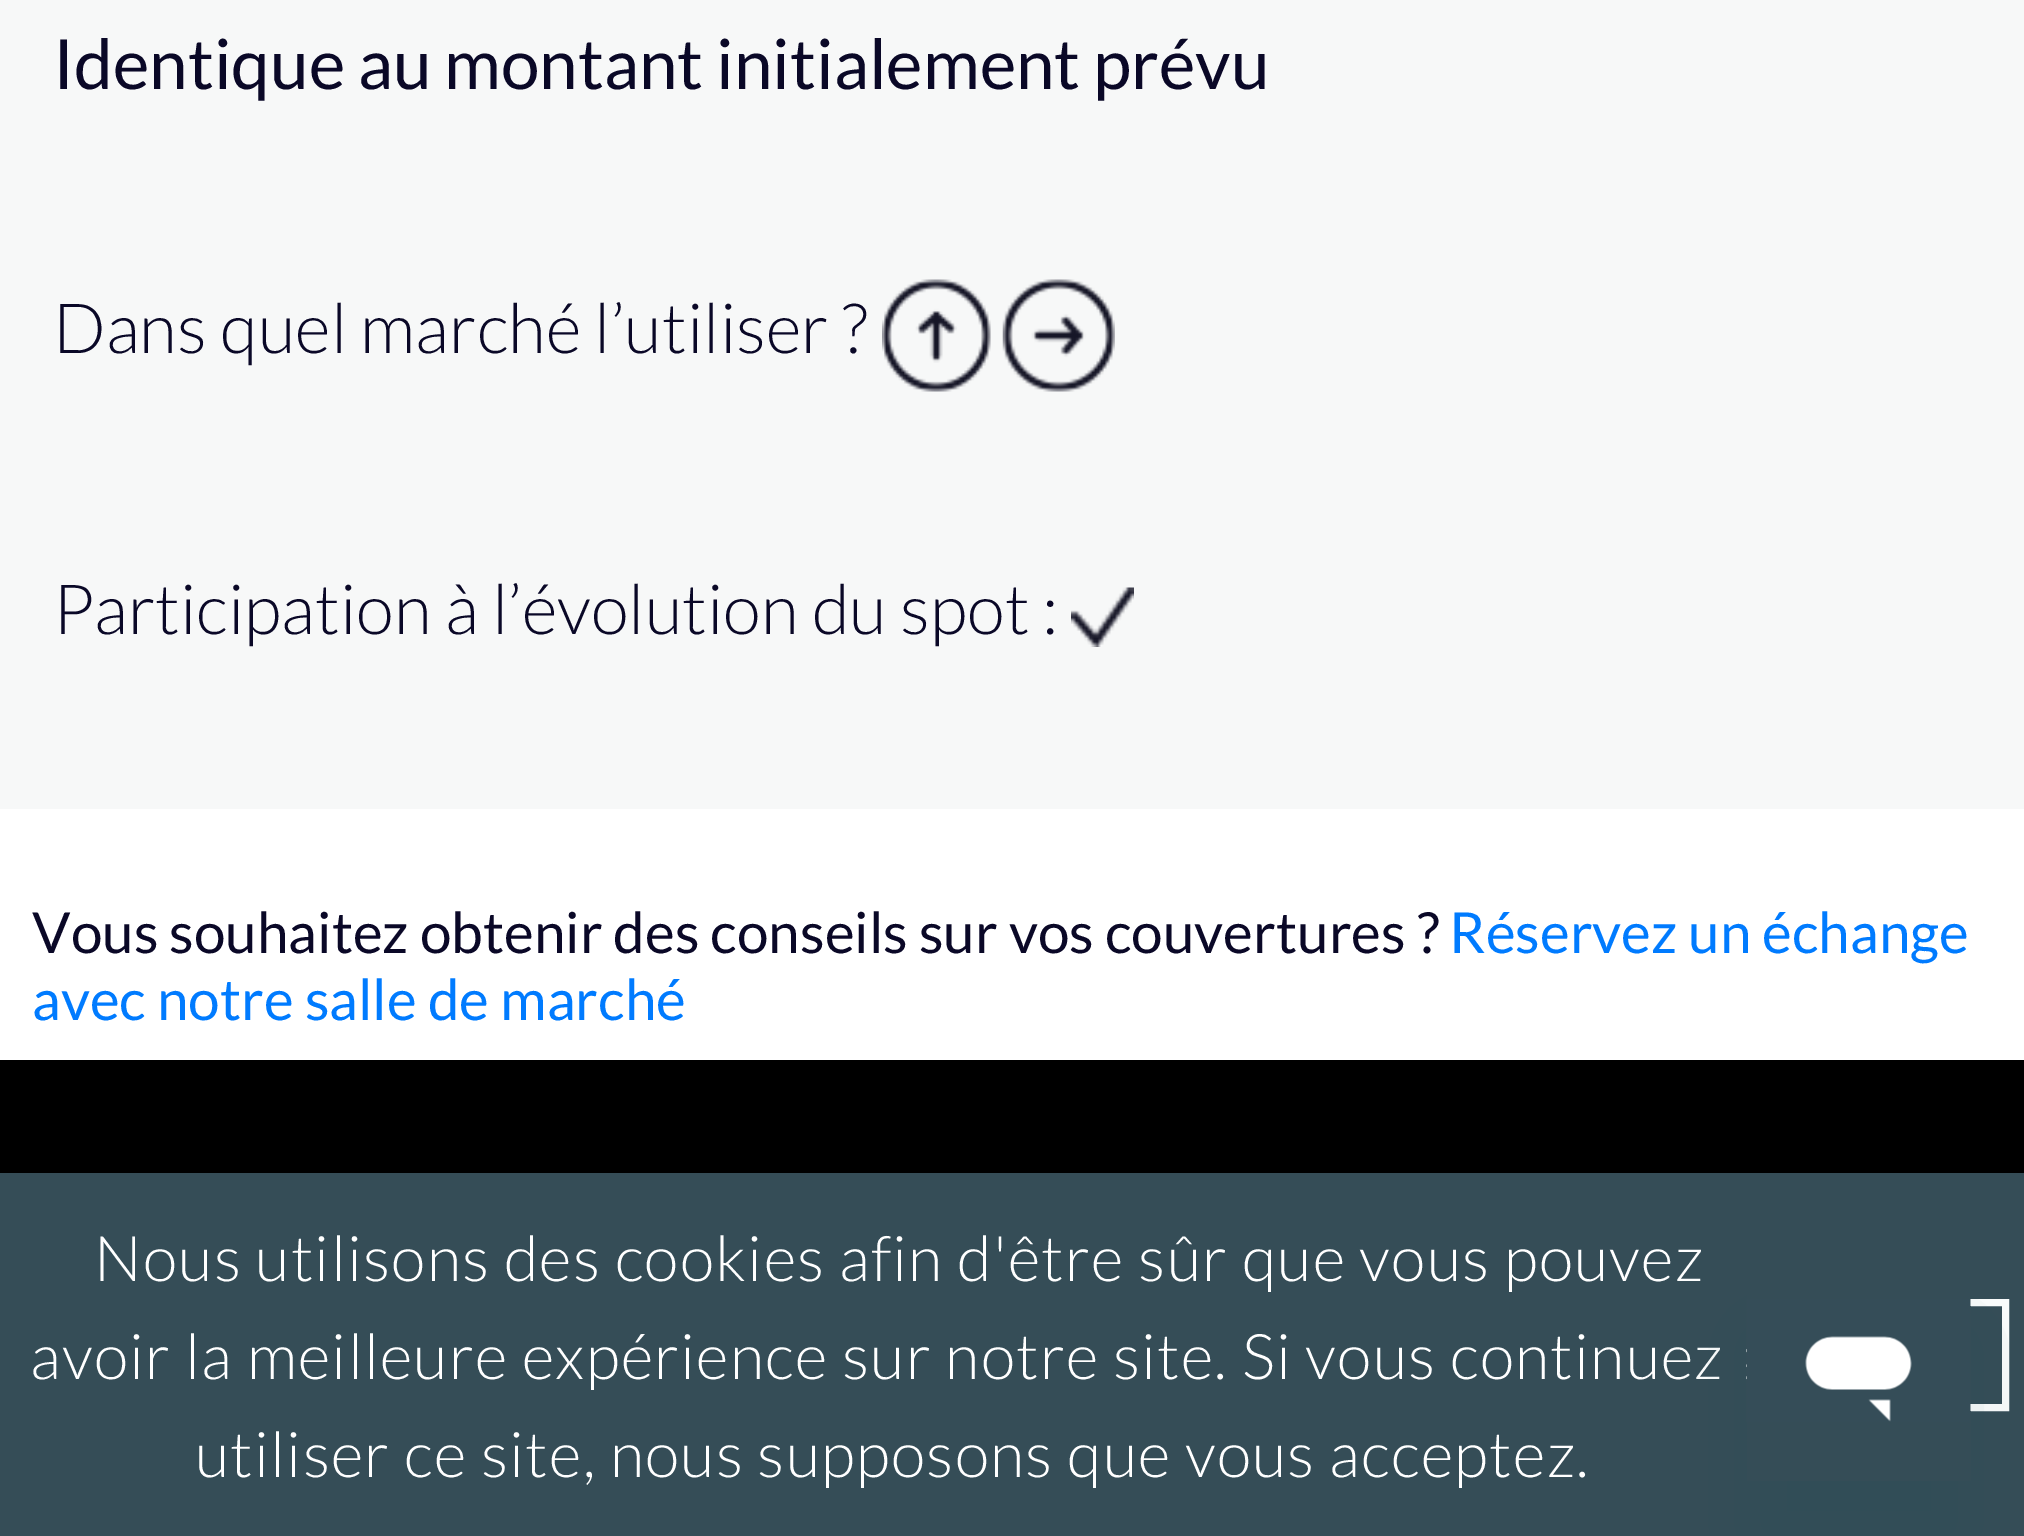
%!PS-Adobe-3.0
%%BoundingBox: 0 0 2024 1536
%%LanguageLevel: 3
%%Pages: 1
%%EndComments
%%BeginProlog
/m { moveto } bind def
/l { lineto } bind def
/h { closepath } bind def
/q { gsave } bind def
/Q { grestore } bind def
/w { setlinewidth } bind def
/fn { [ exch dup neg 0 0 3 -1 roll 0 0 ] selectfont } def
/tx { moveto show } def
/bx { rectfill } def
/al { dup .setfillconstantalpha .setstrokeconstantalpha } def
/rr { 5 dict begin { /r /h /w /y /x } { exch def } forall
  x r add y moveto x w add y 2 copy h add r arct x w add y h add x 1 index r arct
  x y h add x y r arct x y 2 copy exch w add exch r arct closepath end } def
/sh { 12 dict begin { /a /b /q /h /w /y /x } { exch def } forall gsave /was 0 def
  9 -2 -9 { dup b mul 4 div /e exch def 1 sub .425 mul 2.718 exch exp 1 add a .99 .min exch div /now exch def
    1 1 now sub 1 was sub div sub al /was now def
    w h .min e 2 mul add 0 gt { x e sub y e sub w e 2 mul add h e 2 mul add
      q e add b .6 mul add w h .min 2 div e add .min 0 .max rr fill } if } for grestore end } def
/im { 5 dict begin { /h /w /y /x /name } { exch def } forall
  gsave x y translate w h scale
  w h 8 [w 0 0 h 0 0] name (r) file false 3 colorimage grestore end } def
%%EndProlog
%%BeginSetup
<< /PageSize [2024 1536] /PageUsesTransparency true >> setpagedevice
%%EndSetup
%%Page: 1 1
0 .pushpdf14devicefilter
0 1536 translate 1 -1 scale
4 setmiterlimit
1 setgray
0 0 2024 1536 bx
0.969 0.973 0.973 setrgbcolor
0 0 2024 809 bx
/Lato-Regular 69.25 fn
0.039 0.031 0.153 setrgbcolor
53 89 m -0.5 0 32 (Identique au montant initialement prévu) widthshow
/Lato-Light 69.25 fn
(Dans quel marché l’utiliser ?) 53 353 tx
(image0.raw) 882 279 109 113 im
(image1.raw) 1002 279 113 113 im
(Participation à l’évolution du spot) 53 634 tx
(:) 1042 634 tx
(image2.raw) 1071 587 63 60 im
/Lato-Regular 56.7 fn
(Vous souhaitez obtenir des conseils sur vos couvertures ?) 32 953 tx
0 0.482 1 setrgbcolor
(Réservez un échange) 1449 953 tx
(avec notre salle de marché) 32 1020 tx
(image3.raw) 0 1060 2024 113 im
0.208 0.302 0.341 setrgbcolor
0 1173 2024 363 bx
/Lato-Light 63 fn
1 setgray
94 1281 m 1.25 0 (Nous utilisons des cookies afin d'être sûr que vous pouvez) ashow
30 1379 m 1.25 0 (avoir la meilleure expérience sur notre site. Si vous continuez) ashow
7 w
1820.5 1302.5 185 105 rectstroke
195 1477 m 1.25 0 (utiliser ce site, nous supposons que vous acceptez.) ashow
q
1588 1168 m 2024 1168 l 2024 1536 l 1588 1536 l h 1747 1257 m 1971 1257 l 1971 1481 l 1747 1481 l h eoclip newpath
0.09 0.286 0.302 setrgbcolor
1747 1327 224 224 0 52.5 0.15 sh
Q
(image4.raw) 1746 1299 225 123 im
.poppdf14devicefilter showpage
%%EOF
